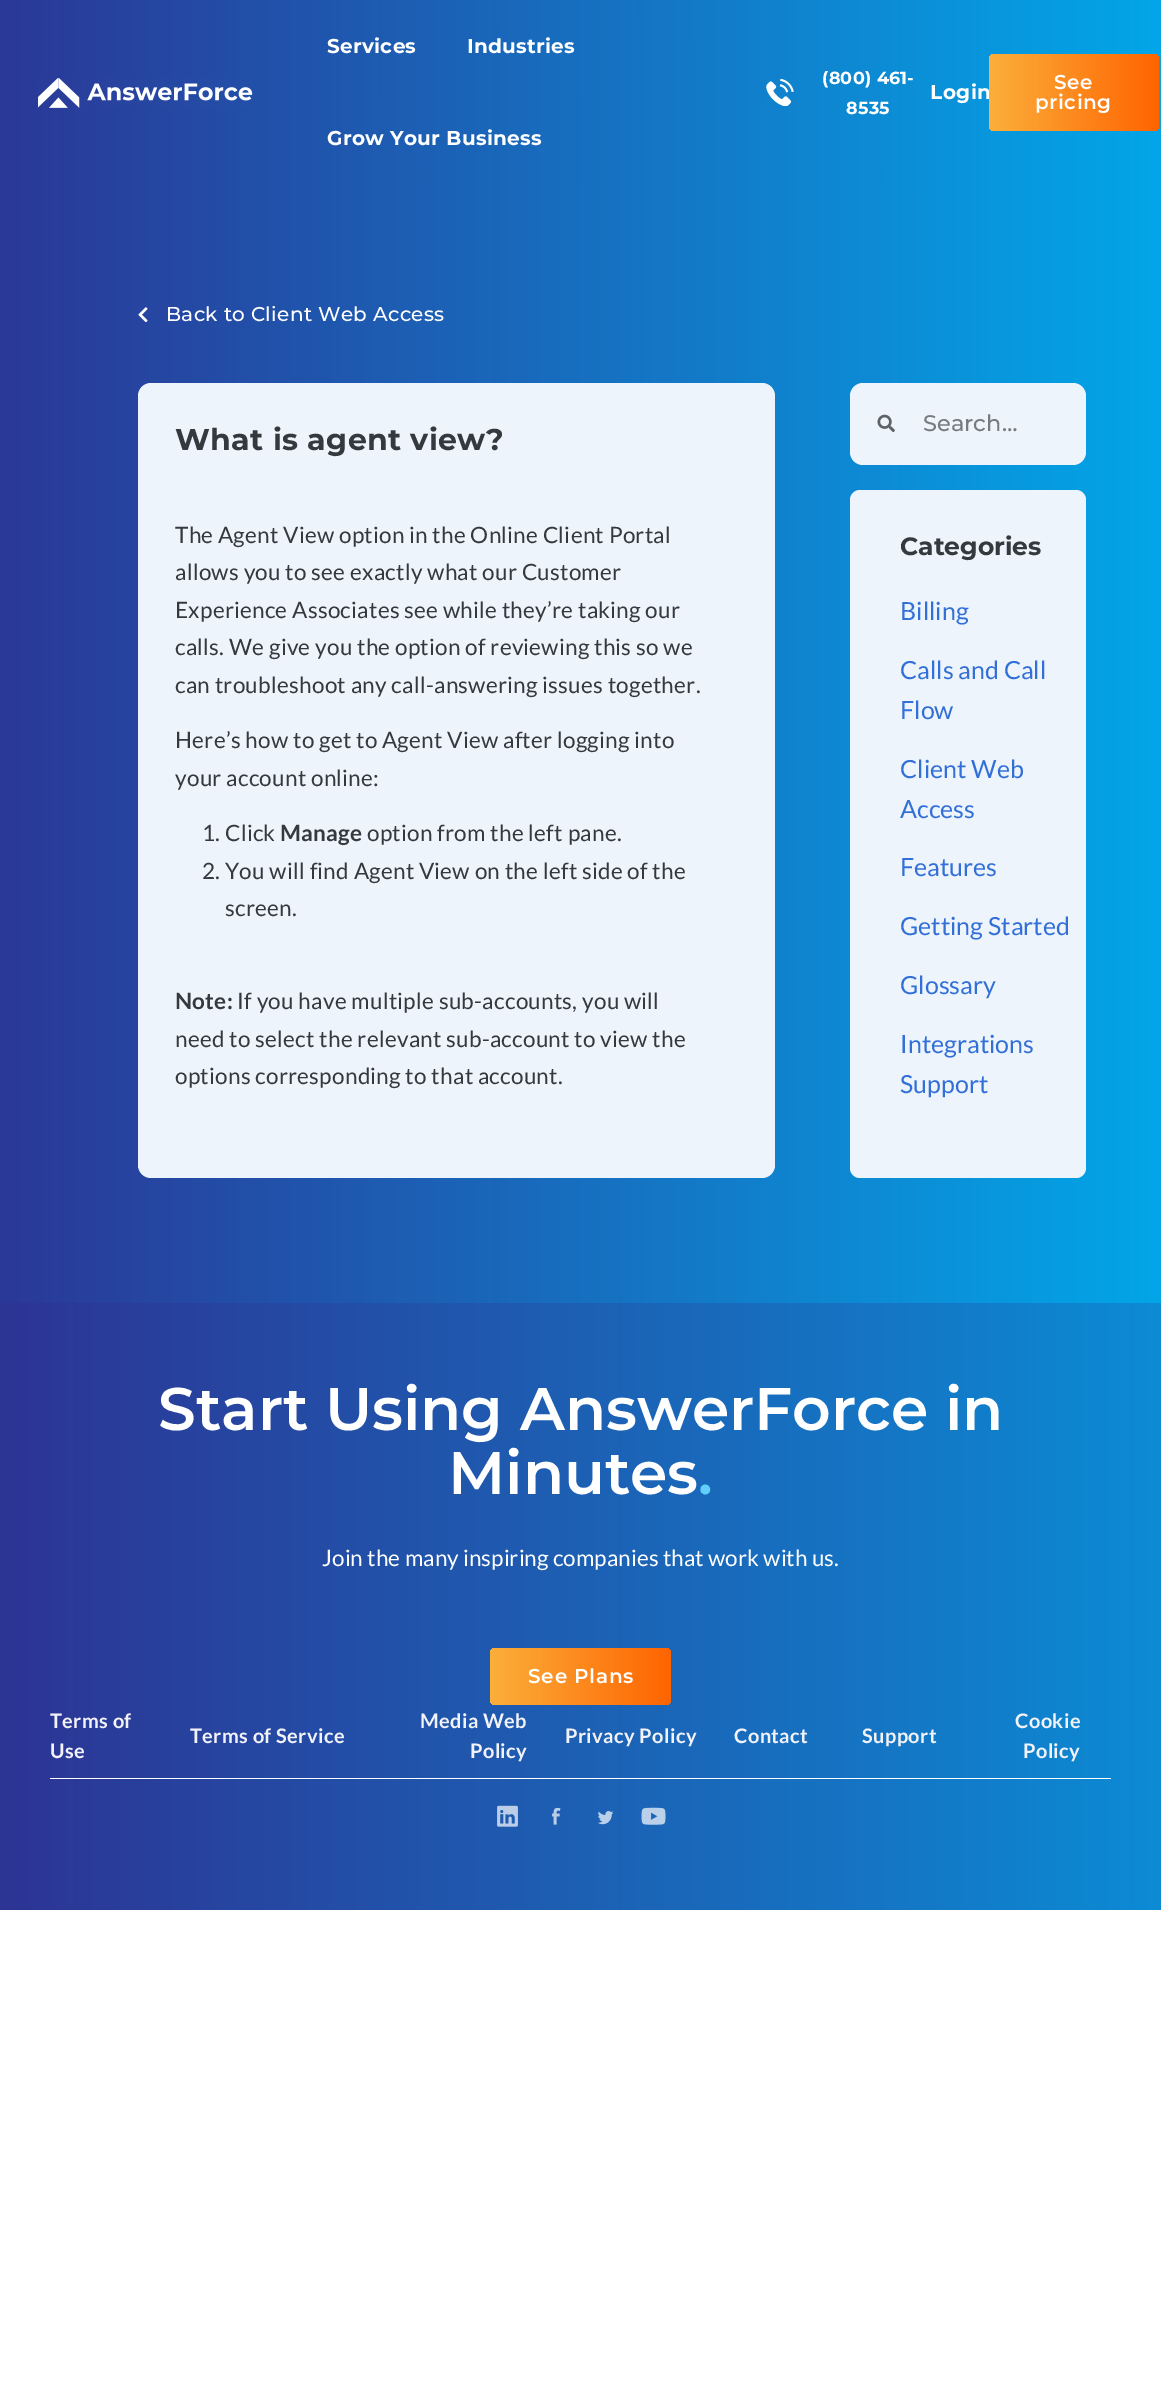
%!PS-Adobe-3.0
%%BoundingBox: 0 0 1161 2384
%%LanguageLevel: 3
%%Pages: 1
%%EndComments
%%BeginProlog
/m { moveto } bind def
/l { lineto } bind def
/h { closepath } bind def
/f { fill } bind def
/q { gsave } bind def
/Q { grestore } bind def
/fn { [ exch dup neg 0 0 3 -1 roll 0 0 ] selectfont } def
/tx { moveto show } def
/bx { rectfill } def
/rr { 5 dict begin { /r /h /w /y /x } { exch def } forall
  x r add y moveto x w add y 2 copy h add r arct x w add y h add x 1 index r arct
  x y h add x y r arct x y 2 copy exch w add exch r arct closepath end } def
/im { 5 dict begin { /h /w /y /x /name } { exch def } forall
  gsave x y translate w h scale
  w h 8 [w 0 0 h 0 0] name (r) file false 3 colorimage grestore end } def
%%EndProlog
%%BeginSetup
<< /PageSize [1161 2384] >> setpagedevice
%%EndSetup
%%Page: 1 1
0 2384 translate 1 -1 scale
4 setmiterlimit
1 setgray
0 0 1161 2384 bx
q 0 0 m 1161 0 l 1161 185 l 0 185 l h clip newpath
<< /ShadingType 2 /ColorSpace /DeviceRGB /Coords [-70 93 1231 92] /Extend [true true] /Function << /FunctionType 2 /Domain [0 1] /C0 [0.18 0.192 0.573] /C1 [0 0.678 0.929] /N 1 >> >> shfill Q
(image0.raw) 38 78 215 30 im
/Montserrat-Bold 20 fn
327 53 m 0.3 0 (Services) ashow
467 53 m 0.3 0 (Industries) ashow
327 145 m 0.3 0 (Grow Your Business) ashow
(image1.raw) 766 79 28 27 im
/Montserrat-Bold 17.5 fn
822 84 m 0.3 0 (\(800\) 461-) ashow
846 114 m 0.3 0 (8535) ashow
/Montserrat-Bold 20 fn
930 99 m 0.5 0 (Login) ashow
q 989 54 170 77 5 rr clip newpath
<< /ShadingType 2 /ColorSpace /DeviceRGB /Coords [989 93 1159 93] /Extend [true true] /Function << /FunctionType 2 /Domain [0 1] /C0 [0.984 0.686 0.231] /C1 [1 0.392 0] /N 1 >> >> shfill Q
/Montserrat-SemiBold 20 fn
1054 89 m 0.5 0 (See) ashow
1035 109 m 0.5 0 (pricing) ashow
q 0 185 m 1161 185 l 1161 345 l 0 345 l h clip newpath
<< /ShadingType 2 /ColorSpace /DeviceRGB /Coords [-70 265 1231 265] /Extend [true true] /Function << /FunctionType 2 /Domain [0 1] /C0 [0.18 0.192 0.573] /C1 [0 0.678 0.929] /N 1 >> >> shfill Q
(image2.raw) 138 307 10 16 im
/Montserrat-Medium 20 fn
166 321 m 0.3 0 (Back to Client Web Access) ashow
q 0 345 m 1161 345 l 1161 1303 l 0 1303 l h clip newpath
<< /ShadingType 2 /ColorSpace /DeviceRGB /Coords [-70 824 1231 824] /Extend [true true] /Function << /FunctionType 2 /Domain [0 1] /C0 [0.18 0.192 0.573] /C1 [0 0.678 0.929] /N 1 >> >> shfill Q
0.929 0.957 0.988 setrgbcolor
138 383 637 795 13 rr f
/Montserrat-Bold 30 fn
0.2 0.224 0.239 setrgbcolor
175 450 m 0.4 0 (What is agent view?) ashow
/Lato-Regular 22.5 fn
175 543 m 0.25 0 (The Agent View option in the Online Client Portal) ashow
175 580 m 0.25 0 (allows you to see exactly what our Customer) ashow
175 618 m 0.25 0 (Experience Associates see while they’re taking our) ashow
175 655 m 0.25 0 (calls. We give you the option of reviewing this so we) ashow
175 693 m 0.25 0 (can troubleshoot any call-answering issues together.) ashow
175 748 m 0.25 0 (Here’s how to get to Agent View after logging into) ashow
175 786 m 0.25 0 (your account online:) ashow
202 841 m 0.25 0 (1. Click) ashow
/Lato-Bold 22.5 fn
280 841 m 0.25 0 (Manage) ashow
/Lato-Regular 22.5 fn
367 841 m 0.25 0 (option from the left pane.) ashow
202 879 m 0.25 0 (2. You will find Agent View on the left side of the) ashow
225 916 m 0.25 0 (screen.) ashow
/Lato-Bold 22.5 fn
175 1009 m 0.25 0 (Note:) ashow
/Lato-Regular 22.5 fn
237 1009 m 0.25 0 (If you have multiple sub-accounts, you will) ashow
175 1047 m 0.25 0 (need to select the relevant sub-account to view the) ashow
175 1084 m 0.25 0 (options corresponding to that account.) ashow
0.929 0.957 0.988 setrgbcolor
850 383 236 82 13 rr f
(image3.raw) 877 414 18 19 im
/Montserrat-Medium 22.5 fn
0.467 0.478 0.494 setrgbcolor
(Search…) 923 431 tx
0.929 0.957 0.988 setrgbcolor
850 490 236 688 10 rr f
/Montserrat-Bold 25 fn
0.2 0.224 0.239 setrgbcolor
(Categories) 900 555 tx
/Lato-Regular 25 fn
0.196 0.439 0.847 setrgbcolor
(Billing) 900 620 tx
(Calls and Call) 900 679 tx
(Flow) 900 719 tx
(Client Web) 900 778 tx
(Access) 900 818 tx
(Features) 900 876 tx
(Getting Started) 900 935 tx
(Glossary) 900 994 tx
(Integrations) 900 1053 tx
(Support) 900 1093 tx
q 0 1303 m 1161 1303 l 1161 1910 l 0 1910 l h clip newpath
<< /ShadingType 2 /ColorSpace /DeviceRGB /Coords [-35 1606 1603 1606] /Extend [true true] /Function << /FunctionType 2 /Domain [0 1] /C0 [0.18 0.192 0.573] /C1 [0 0.678 0.929] /N 1 >> >> shfill Q
/Montserrat-SemiBold 60 fn
1 setgray
(Start Using AnswerForce in) 158 1430 tx
(Minutes) 448 1494 tx
0.38 0.808 0.988 setrgbcolor
(.) 698 1494 tx
/Lato-Regular 22.5 fn
1 setgray
322 1566 m 0.05 0 (Join the many inspiring companies that work with us.) ashow
q 490 1648 181 57 5 rr clip newpath
<< /ShadingType 2 /ColorSpace /DeviceRGB /Coords [490 1676 671 1676] /Extend [true true] /Function << /FunctionType 2 /Domain [0 1] /C0 [0.984 0.686 0.231] /C1 [1 0.392 0] /N 1 >> >> shfill Q
/Montserrat-SemiBold 20 fn
528 1683 m 0.75 0 (See Plans) ashow
50 1778 1061 1 bx
/Lato-Bold 20 fn
0.949 0.949 0.976 setrgbcolor
50 1728 m 0.4 0 (Terms of) ashow
50 1758 m 0.4 0 (Use) ashow
190 1743 m 0.4 0 (Terms of Service) ashow
420 1728 m 0.4 0 (Media Web) ashow
470 1758 m 0.4 0 (Policy) ashow
565 1743 m 0.4 0 (Privacy Policy) ashow
734 1743 m 0.4 0 (Contact) ashow
862 1743 m 0.4 0 (Support) ashow
1015 1728 m 0.4 0 (Cookie) ashow
1023 1758 m 0.4 0 (Policy) ashow
(image4.raw) 497 1805 21 22 im
(image5.raw) 552 1807 9 18 im
(image6.raw) 598 1811 16 14 im
(image7.raw) 641 1807 25 18 im
showpage
%%EOF
